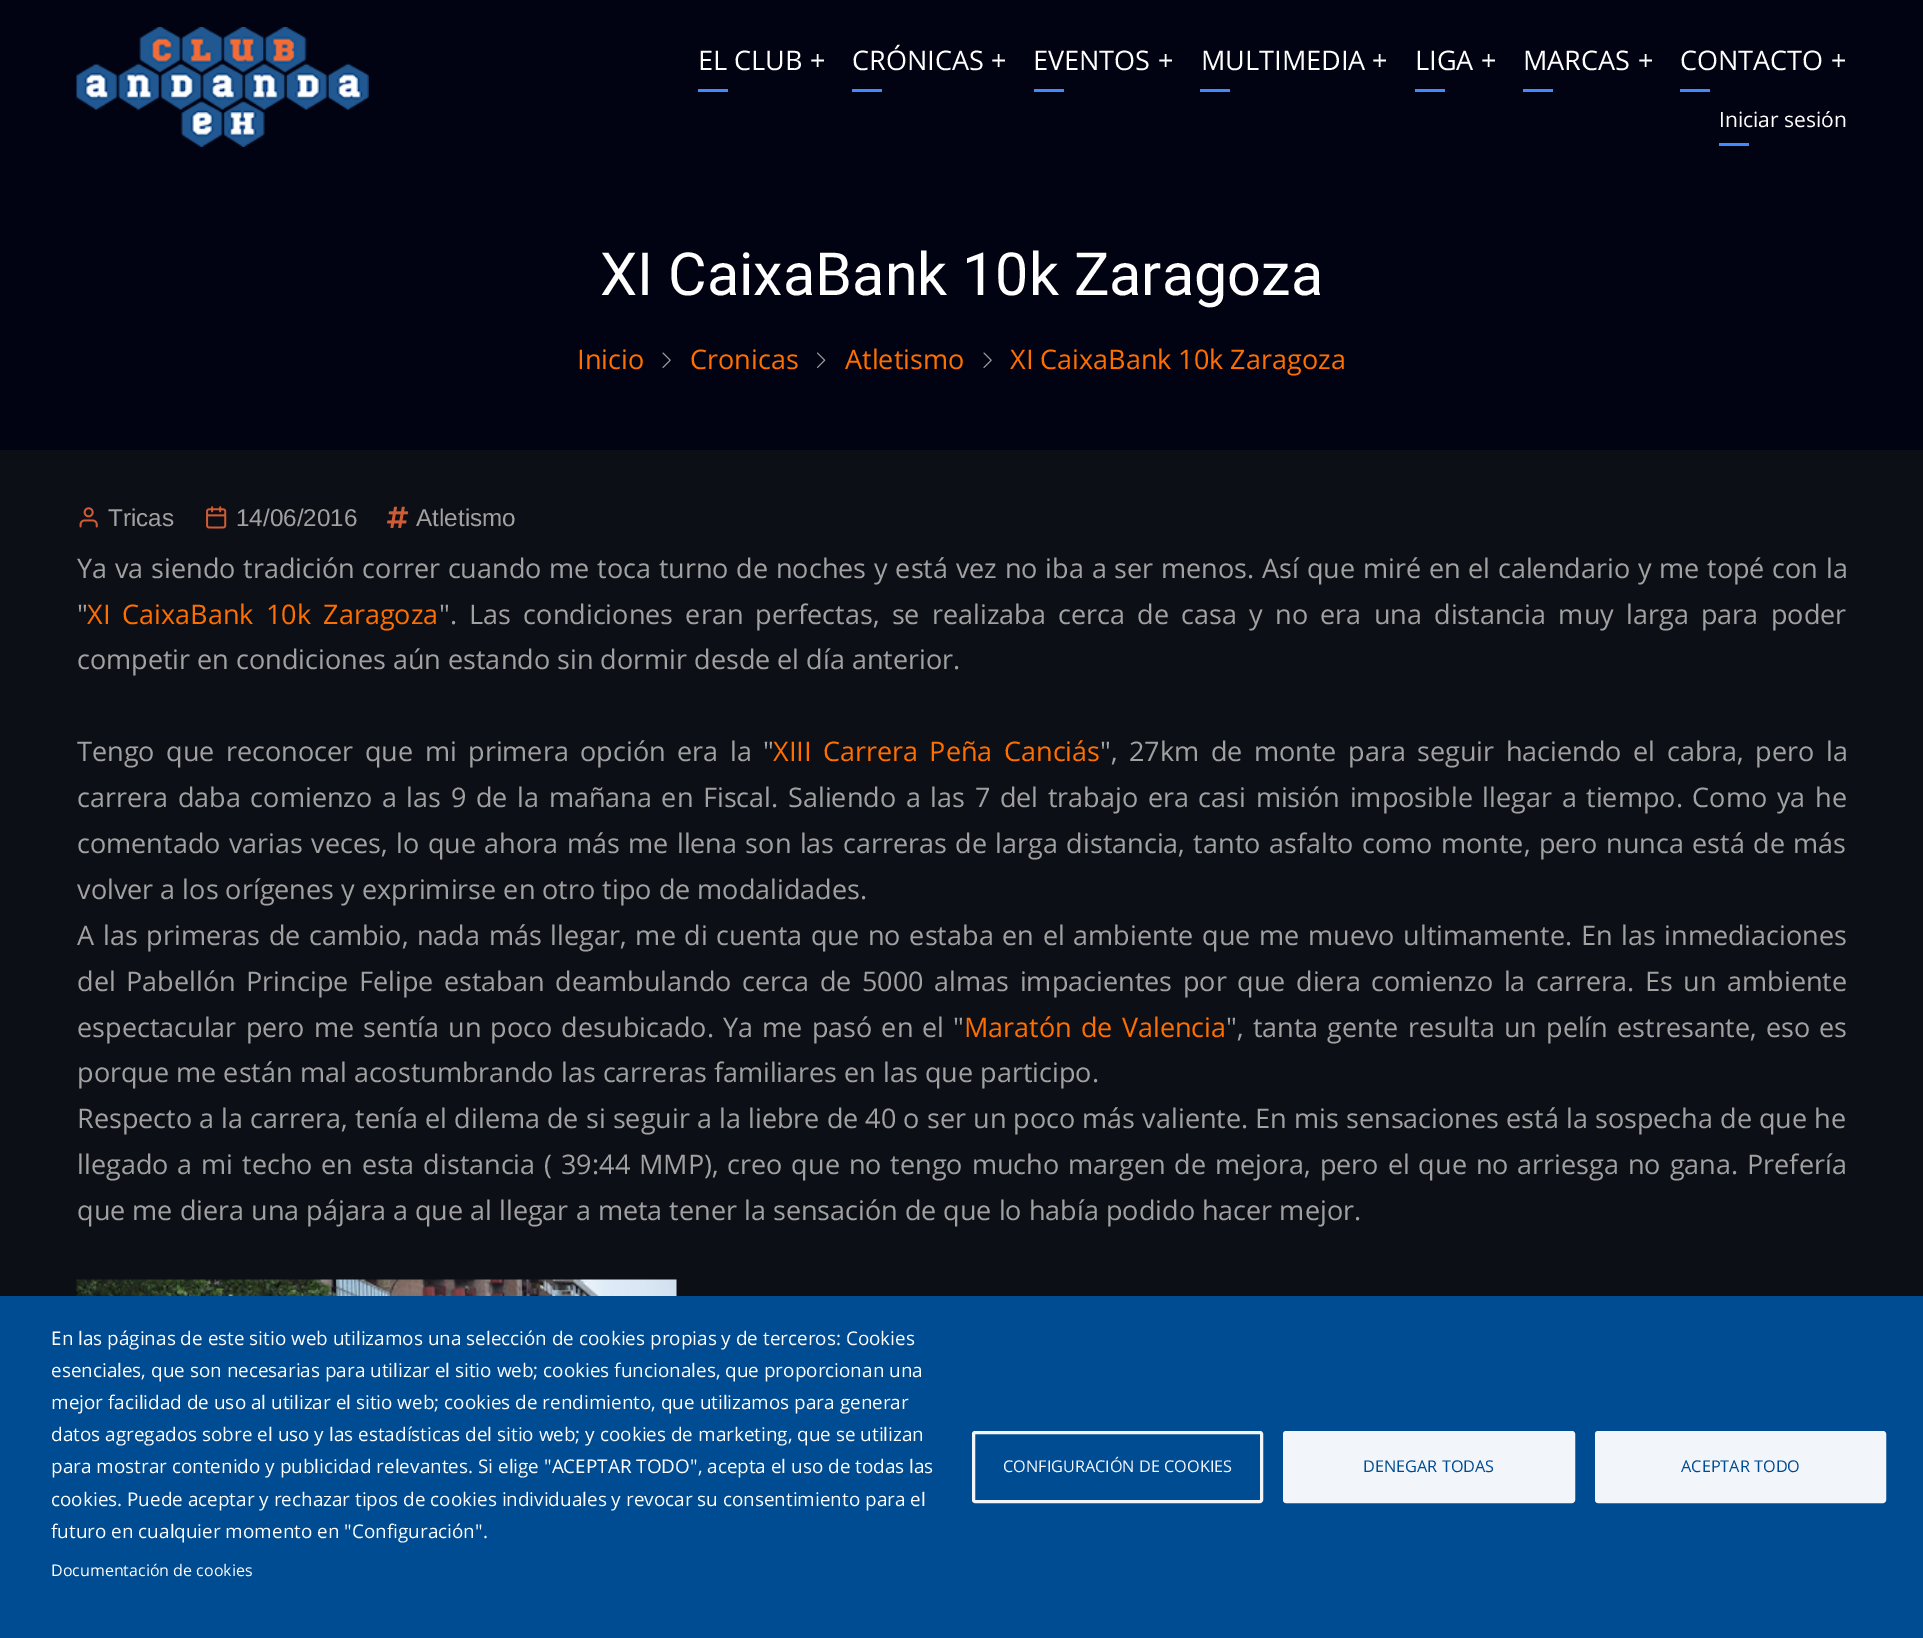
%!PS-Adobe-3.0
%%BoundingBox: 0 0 1923 1638
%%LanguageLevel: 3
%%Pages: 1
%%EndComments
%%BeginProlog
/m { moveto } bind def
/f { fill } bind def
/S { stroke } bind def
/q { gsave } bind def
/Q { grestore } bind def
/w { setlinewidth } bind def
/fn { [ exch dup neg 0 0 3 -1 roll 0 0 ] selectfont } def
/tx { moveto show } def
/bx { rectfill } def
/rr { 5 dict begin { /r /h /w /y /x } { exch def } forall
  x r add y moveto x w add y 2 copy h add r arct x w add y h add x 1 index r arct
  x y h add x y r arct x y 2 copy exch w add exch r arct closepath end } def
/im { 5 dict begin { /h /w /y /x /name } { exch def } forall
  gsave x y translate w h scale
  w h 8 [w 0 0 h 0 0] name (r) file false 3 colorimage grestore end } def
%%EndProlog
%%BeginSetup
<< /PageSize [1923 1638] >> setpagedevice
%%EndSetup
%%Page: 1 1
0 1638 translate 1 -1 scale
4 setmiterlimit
0.051 0.059 0.086 setrgbcolor
0 0 1923 1638 bx
0.008 0.012 0.071 setrgbcolor
0 0 1923 450 bx
(image0.raw) 76 27 293 120 im
/OpenSans-Regular 27 fn
1 setgray
(EL CLUB) 698 70 tx
(+) 810 70 tx
0.267 0.541 1 setrgbcolor
698 89 30 3 bx
1 setgray
(CRÓNICAS) 852 70 tx
(+) 991 70 tx
0.267 0.541 1 setrgbcolor
852 89 30 3 bx
1 setgray
(EVENTOS) 1033 70 tx
(+) 1158 70 tx
0.267 0.541 1 setrgbcolor
1034 89 30 3 bx
1 setgray
(MULTIMEDIA) 1201 70 tx
(+) 1372 70 tx
0.267 0.541 1 setrgbcolor
1200 89 30 3 bx
1 setgray
(LIGA) 1415 70 tx
(+) 1481 70 tx
0.267 0.541 1 setrgbcolor
1415 89 30 3 bx
1 setgray
(MARCAS) 1523 70 tx
(+) 1638 70 tx
0.267 0.541 1 setrgbcolor
1523 89 30 3 bx
1 setgray
(CONTACTO) 1680 70 tx
(+) 1831 70 tx
0.267 0.541 1 setrgbcolor
1680 89 30 3 bx
/OpenSans-Regular 21 fn
1 setgray
(Iniciar sesión) 1719 127 tx
0.267 0.541 1 setrgbcolor
1719 143 30 3 bx
/Roboto-Regular 59.4 fn
1 setgray
(XI CaixaBank 10k Zaragoza) 600 295 tx
/OpenSans-Regular 27 fn
1 0.435 0 setrgbcolor
(Inicio) 577 369 tx
(image1.raw) 662 352 9 16 im
(Cronicas) 690 369 tx
(image2.raw) 816 352 10 16 im
(Atletismo) 845 369 tx
(image1.raw) 983 352 9 16 im
(XI CaixaBank 10k Zaragoza) 1010 369 tx
(image3.raw) 79 507 19 21 im
/LiberationSans-Regular 24.25 fn
0.631 setgray
(Tricas) 108 526 tx
(image4.raw) 206 506 21 23 im
(14/06/2016) 236 526 tx
(image5.raw) 387 506 22 22 im
(Atletismo) 416 526 tx
/OpenSans-Regular 27 fn
77 578 m 0.75 0 32 (Ya va siendo tradición correr cuando me toca turno de noches y está vez no iba a ser menos. Así que miré en el calendario y me topé con la) widthshow
(") 77 624 tx
1 0.435 0 setrgbcolor
87 624 m 5.25 0 32 (XI CaixaBank 10k Zaragoza) widthshow
0.631 setgray
439 624 m 5.25 0 32 (". Las condiciones eran perfectas, se realizaba cerca de casa y no era una distancia muy larga para poder) widthshow
(competir en condiciones aún estando sin dormir desde el día anterior.) 77 669 tx
77 761 m 4.5 0 32 (Tengo que reconocer que mi primera opción era la ") widthshow
1 0.435 0 setrgbcolor
773 761 m 4.5 0 32 (XIII Carrera Peña Canciás) widthshow
0.631 setgray
1100 761 m 4.5 0 32 (", 27km de monte para seguir haciendo el cabra, pero la) widthshow
77 807 m 2.6 0 32 (carrera daba comienzo a las 9 de la mañana en Fiscal. Saliendo a las 7 del trabajo era casi misión imposible llegar a tiempo. Como ya he) widthshow
77 853 m 1.4 0 32 (comentado varias veces, lo que ahora más me llena son las carreras de larga distancia, tanto asfalto como monte, pero nunca está de más) widthshow
(volver a los orígenes y exprimirse en otro tipo de modalidades.) 77 899 tx
77 945 m 1.7 0 32 (A las primeras de cambio, nada más llegar, me di cuenta que no estaba en el ambiente que me muevo ultimamente. En las inmediaciones) widthshow
77 991 m 3.6 0 32 (del Pabellón Principe Felipe estaban deambulando cerca de 5000 almas impacientes por que diera comienzo la carrera. Es un ambiente) widthshow
77 1037 m 2.1 0 32 (espectacular pero me sentía un poco desubicado. Ya me pasó en el ") widthshow
1 0.435 0 setrgbcolor
964 1037 m 2.1 0 32 (Maratón de Valencia) widthshow
0.631 setgray
1226 1037 m 2.1 0 32 (", tanta gente resulta un pelín estresante, eso es) widthshow
(porque me están mal acostumbrando las carreras familiares en las que participo.) 77 1082 tx
77 1128 m 0.1 0 32 (Respecto a la carrera, tenía el dilema de si seguir a la liebre de 40 o ser un poco más valiente. En mis sensaciones está la sospecha de que he) widthshow
77 1174 m 1.85 0 32 (llegado a mi techo en esta distancia \( 39:44 MMP\), creo que no tengo mucho margen de mejora, pero el que no arriesga no gana. Prefería) widthshow
(que me diera una pájara a que al llegar a meta tener la sensación de que lo había podido hacer mejor.) 77 1220 tx
(image6.raw) 76 1279 601 17 im
0 0.298 0.576 setrgbcolor
0 1296 1923 342 bx
/OpenSans-Regular 18.9 fn
1 setgray
(En las páginas de este sitio web utilizamos una selección de cookies propias y de terceros: Cookies) 51 1345 tx
(esenciales, que son necesarias para utilizar el sitio web; cookies funcionales, que proporcionan una) 51 1377 tx
(mejor facilidad de uso al utilizar el sitio web; cookies de rendimiento, que utilizamos para generar) 51 1409 tx
(datos agregados sobre el uso y las estadísticas del sitio web; y cookies de marketing, que se utilizan) 51 1441 tx
(para mostrar contenido y publicidad relevantes. Si elige "ACEPTAR TODO", acepta el uso de todas las) 51 1473 tx
(cookies. Puede aceptar y rechazar tipos de cookies individuales y revocar su consentimiento para el) 51 1506 tx
(futuro en cualquier momento en "Configuración".) 51 1538 tx
/OpenSans-Regular 16 fn
(Documentación de cookies) 51 1576 tx
0.949 0.965 0.98 setrgbcolor
3 w
973.5 1432.5 288 69 1.5 rr S
/OpenSans-Regular 16.25 fn
(CONFIGURACIÓN DE COOKIES) 1003 1472 tx
1284.5 1432.5 289 69 1.5 rr q f Q
S
0 0.298 0.576 setrgbcolor
(DENEGAR TODAS) 1363 1472 tx
0.949 0.965 0.98 setrgbcolor
1596.5 1432.5 288 69 1.5 rr q f Q
S
0 0.298 0.576 setrgbcolor
(ACEPTAR TODO) 1681 1472 tx
showpage
%%EOF
